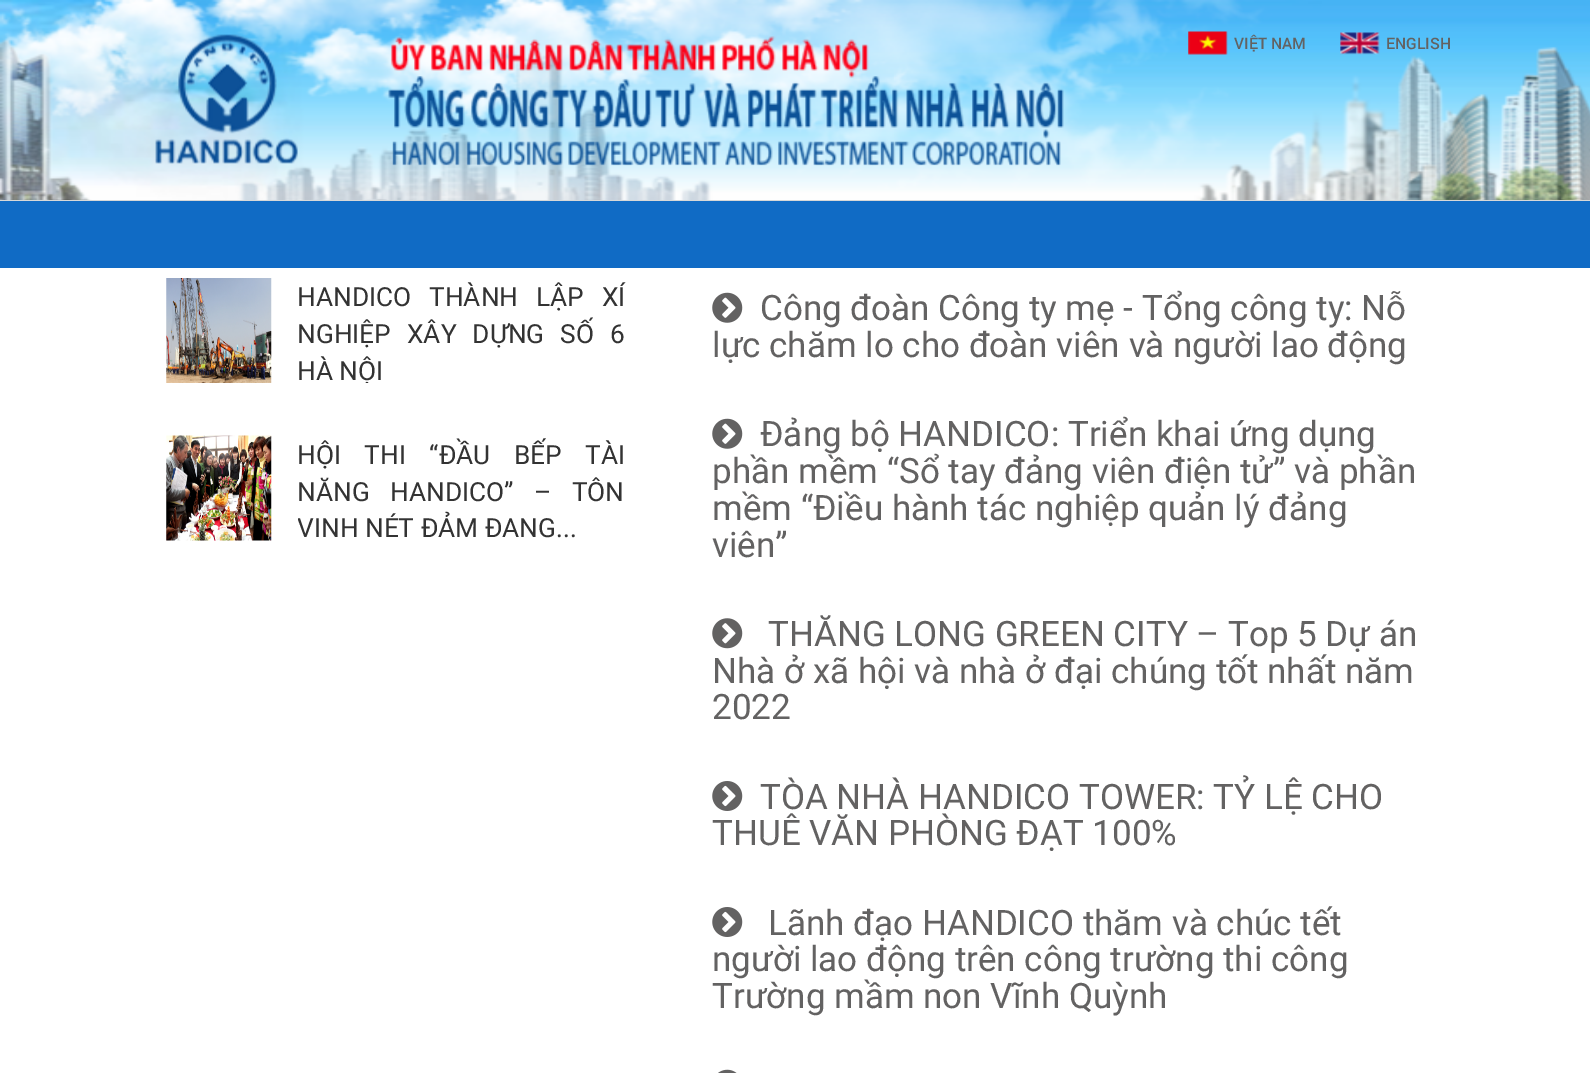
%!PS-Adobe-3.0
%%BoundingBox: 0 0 1590 1073
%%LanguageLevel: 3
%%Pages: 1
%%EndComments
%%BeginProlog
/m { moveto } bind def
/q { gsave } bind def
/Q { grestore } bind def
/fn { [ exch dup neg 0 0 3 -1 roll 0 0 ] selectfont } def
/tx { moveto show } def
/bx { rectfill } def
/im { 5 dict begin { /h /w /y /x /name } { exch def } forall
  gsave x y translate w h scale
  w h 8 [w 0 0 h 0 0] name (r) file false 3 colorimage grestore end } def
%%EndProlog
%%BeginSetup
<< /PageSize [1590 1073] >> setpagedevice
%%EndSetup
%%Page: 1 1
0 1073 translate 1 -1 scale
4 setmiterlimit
1 setgray
0 0 1590 1073 bx
(image0.raw) 0 0 1590 200 im
0.847 setgray
0 200 1590 1 bx
(image1.raw) 155 34 143 130 im
(image2.raw) 388 36 676 130 im
(image3.raw) 1188 31 40 24 im
/Roboto-Medium 15.75 fn
0.388 0.384 0.384 setrgbcolor
(VIỆT NAM) 1234 49 tx
(image4.raw) 1340 32 40 23 im
(ENGLISH) 1386 49 tx
0.063 0.42 0.773 setrgbcolor
0 201 1590 67 bx
(image5.raw) 166 278 106 105 im
/Roboto-Regular 26.25 fn
0.2 setgray
297 306 m 11.5 0 32 (HANDICO THÀNH LẬP XÍ) widthshow
297 343 m 9.5 0 32 (NGHIỆP XÂY DỰNG SỐ 6) widthshow
q
298 278 327 105 rectclip
(HÀ NỘI) 297 380 tx
Q
(image6.raw) 166 435 106 106 im
297 464 m 17 0 32 (HỘI THI “ĐẦU BẾP TÀI) widthshow
297 501 m 14 0 32 (NĂNG HANDICO” – TÔN) widthshow
q
298 436 327 105 rectclip
(VINH NÉT ĐẢM ĐANG...) 297 537 tx
Q
(image7.raw) 712 292 31 31 im
/Roboto-Regular 35 fn
0.388 0.384 0.384 setrgbcolor
(Công đoàn Công ty mẹ - Tổng công ty: Nỗ) 760 320 tx
(lực chăm lo cho đoàn viên và người lao động) 712 357 tx
(image7.raw) 712 418 31 31 im
(Đảng bộ HANDICO: Triển khai ứng dụng) 760 446 tx
(phần mềm “Sổ tay đảng viên điện tử” và phần) 712 483 tx
(mềm “Điều hành tác nghiệp quản lý đảng) 712 520 tx
(viên”) 712 557 tx
(image8.raw) 712 618 31 31 im
(THĂNG LONG GREEN CITY – Top 5 Dự án) 768 646 tx
(Nhà ở xã hội và nhà ở đại chúng tốt nhất năm) 712 683 tx
(2022) 712 719 tx
(image9.raw) 712 781 31 30 im
(TÒA NHÀ HANDICO TOWER: TỶ LỆ CHO) 760 809 tx
(THUÊ VĂN PHÒNG ĐẠT 100%) 712 845 tx
(image10.raw) 712 907 31 30 im
(Lãnh đạo HANDICO thăm và chúc tết) 768 935 tx
(người lao động trên công trường thi công) 712 971 tx
(Trường mầm non Vĩnh Quỳnh) 712 1008 tx
(image11.raw) 718 1069 19 4 im
showpage
%%EOF
